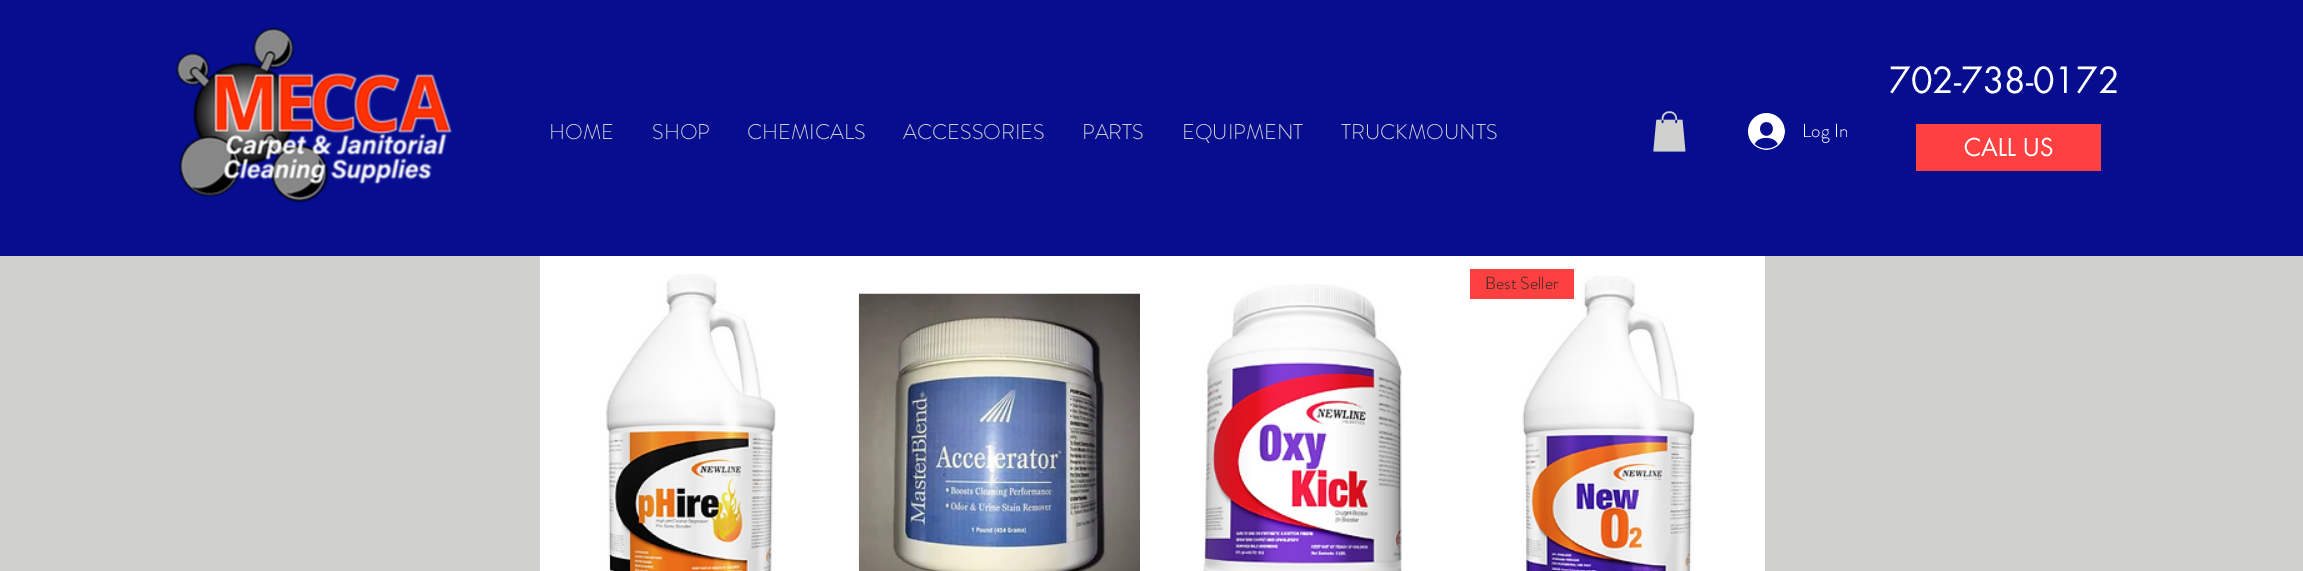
%!PS-Adobe-3.0
%%BoundingBox: 0 0 2303 571
%%LanguageLevel: 3
%%Pages: 1
%%EndComments
%%BeginProlog
/fn { [ exch dup neg 0 0 3 -1 roll 0 0 ] selectfont } def
/tx { moveto show } def
/bx { rectfill } def
/im { 5 dict begin { /h /w /y /x /name } { exch def } forall
  gsave x y translate w h scale
  w h 8 [w 0 0 h 0 0] name (r) file false 3 colorimage grestore end } def
%%EndProlog
%%BeginSetup
<< /PageSize [2303 571] >> setpagedevice
%%EndSetup
%%Page: 1 1
0 571 translate 1 -1 scale
4 setmiterlimit
0.816 0.816 0.812 setrgbcolor
0 0 2303 571 bx
0.024 0.051 0.561 setrgbcolor
0 0 2303 256 bx
(image0.raw) 175 27 277 176 im
/futura-Regular 35 fn
1 setgray
(702-738-0172) 1889 93 tx
/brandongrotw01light-Light 21.25 fn
0.816 0.816 0.812 setrgbcolor
(HOME) 549 139 tx
(SHOP) 652 139 tx
(CHEMICALS) 747 139 tx
(ACCESSORIES) 903 139 tx
(PARTS) 1082 139 tx
(EQUIPMENT) 1182 139 tx
(TRUCKMOUNTS) 1341 139 tx
(image1.raw) 1653 111 33 41 im
(image2.raw) 1748 113 37 37 im
/brandongrotw01light-Light 19 fn
1 setgray
(Log In) 1802 137 tx
1 0.251 0.251 setrgbcolor
1916 124 185 47 bx
/futura-Regular 24 fn
1 setgray
(CALL US) 1964 156 tx
540 256 1225 315 bx
(image3.raw) 606 274 170 297 im
(image4.raw) 858 293 282 278 im
(image5.raw) 1202 284 200 287 im
(image6.raw) 1522 275 173 296 im
1 0.251 0.251 setrgbcolor
1470 269 104 30 bx
/brandongrotw01light-Light 17.5 fn
0.157 setgray
(Best Seller) 1485 289 tx
showpage
%%EOF
